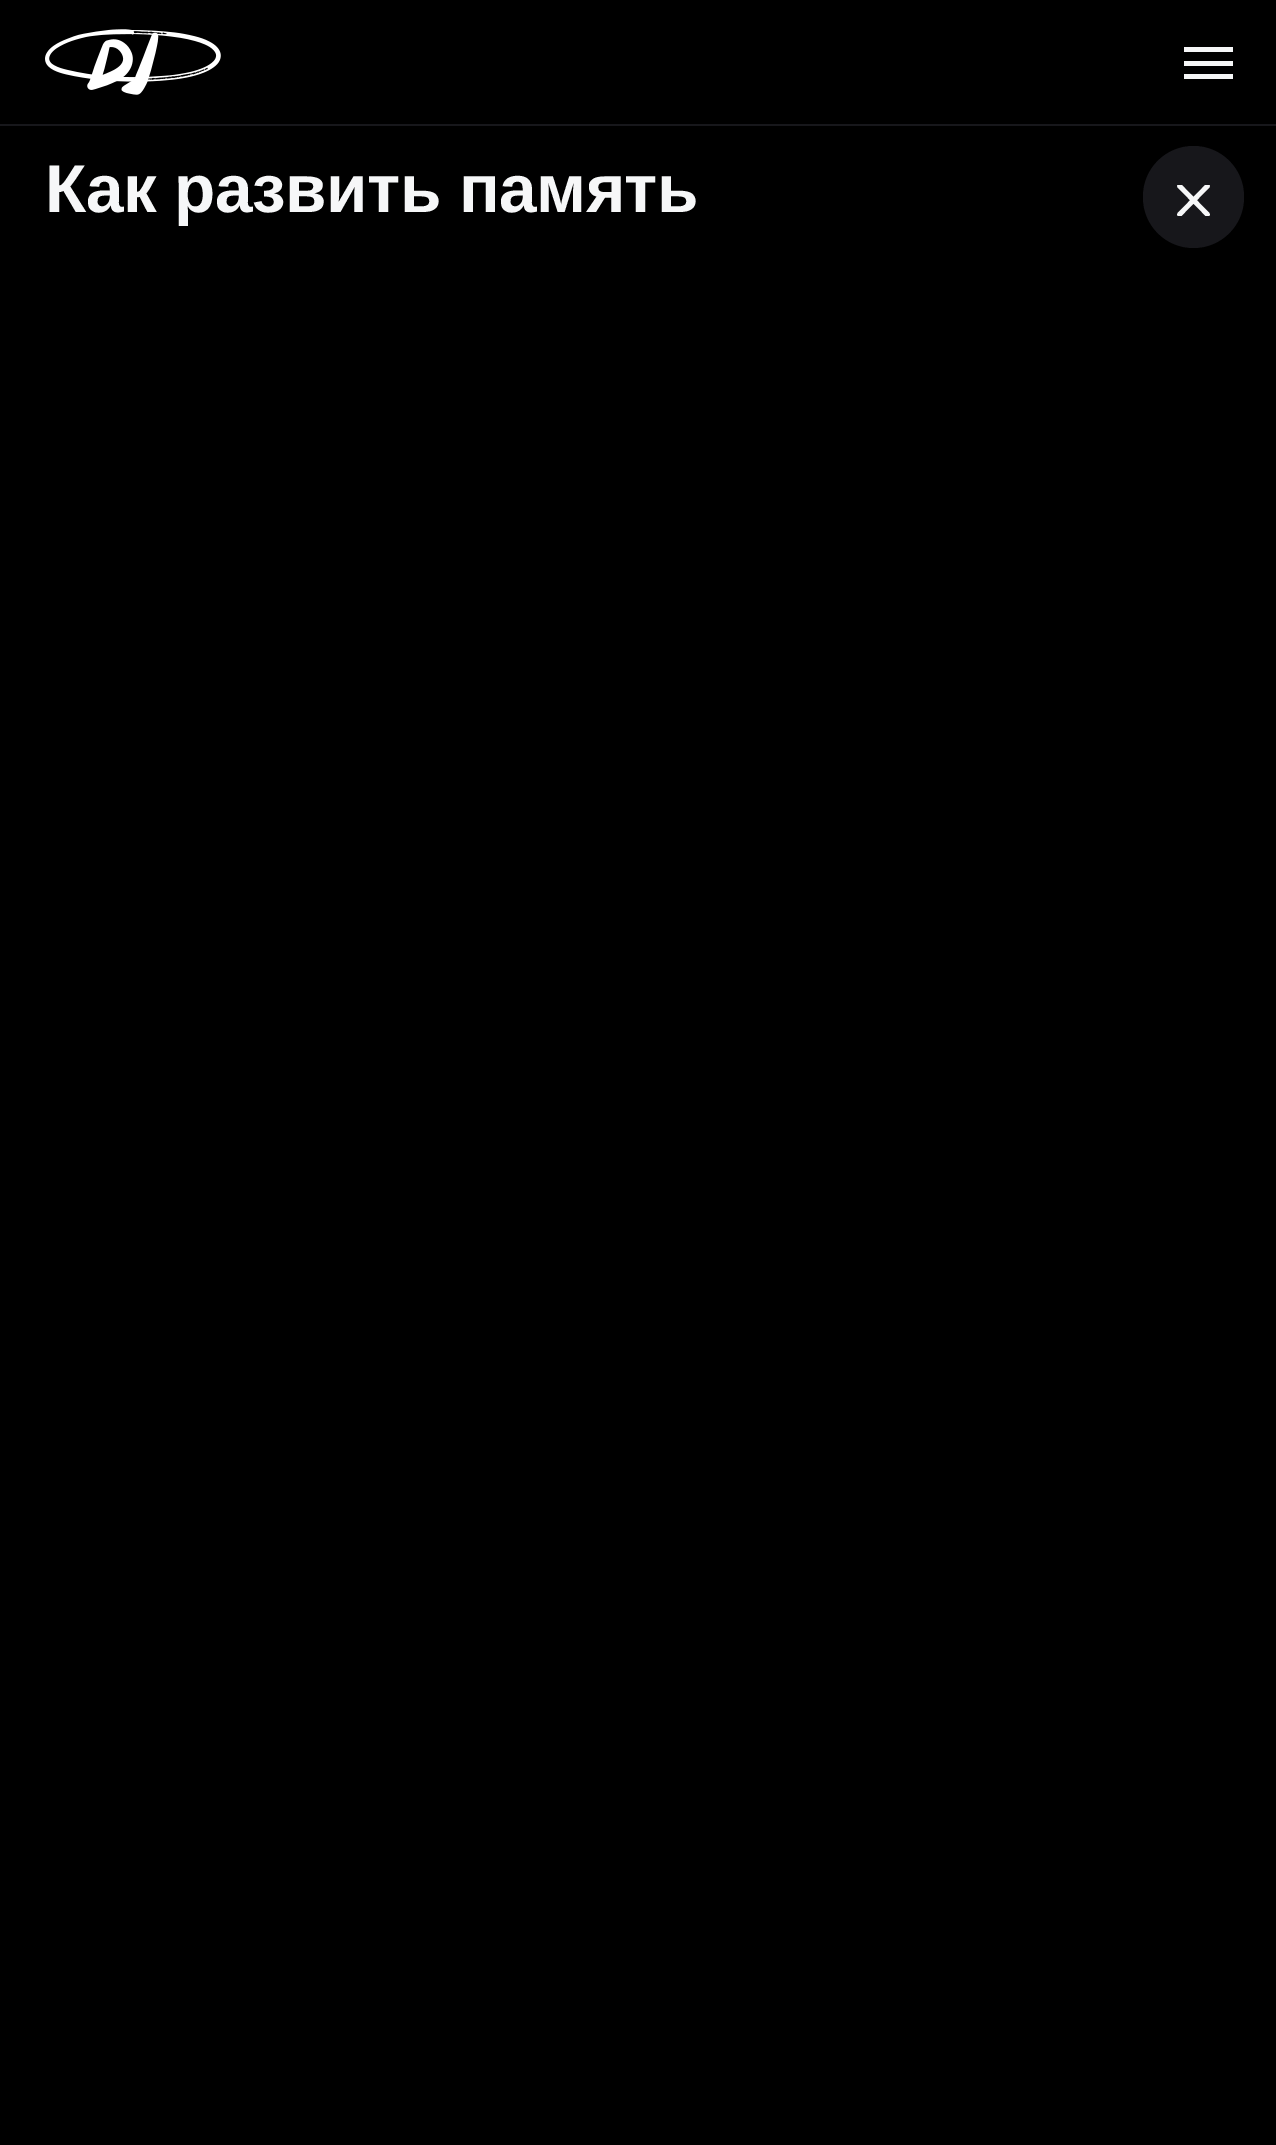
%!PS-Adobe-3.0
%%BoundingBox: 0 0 1276 2145
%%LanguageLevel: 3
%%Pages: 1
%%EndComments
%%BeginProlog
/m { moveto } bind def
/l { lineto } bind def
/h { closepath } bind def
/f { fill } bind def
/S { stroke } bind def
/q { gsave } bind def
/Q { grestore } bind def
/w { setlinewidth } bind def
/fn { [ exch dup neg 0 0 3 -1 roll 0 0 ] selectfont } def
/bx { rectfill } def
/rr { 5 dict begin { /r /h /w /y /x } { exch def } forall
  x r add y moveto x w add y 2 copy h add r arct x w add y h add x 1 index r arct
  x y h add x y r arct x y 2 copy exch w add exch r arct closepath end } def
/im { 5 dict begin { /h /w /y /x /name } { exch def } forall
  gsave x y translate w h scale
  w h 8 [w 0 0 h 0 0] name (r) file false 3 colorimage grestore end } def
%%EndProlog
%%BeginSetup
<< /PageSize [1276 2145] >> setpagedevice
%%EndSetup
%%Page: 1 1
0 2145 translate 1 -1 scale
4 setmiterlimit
0 setgray
0 0 1276 2145 bx
0.09 0.09 0.106 setrgbcolor
0 124 1276 2 bx
(image0.raw) 45 29 176 66 im
0.965 0.969 0.973 setrgbcolor
1184 47 49 5 bx
1184 61 49 5 bx
1184 74 49 5 bx
0.09 0.09 0.106 setrgbcolor
1143 146 101 102 50.5 rr f
q
1177 185 34 31 rectclip
0.965 0.969 0.973 setrgbcolor
4.7 w
1 setlinecap
1 setlinejoin
1207.5 186 m 1179.5 214.5 l 1207.5 214.5 m 1179.5 186 l h S
Q
/LiberationSans-Bold 67.5 fn
0.965 0.969 0.973 setrgbcolor
45 212 m -0.5 0 (Как развить память) ashow
showpage
%%EOF
